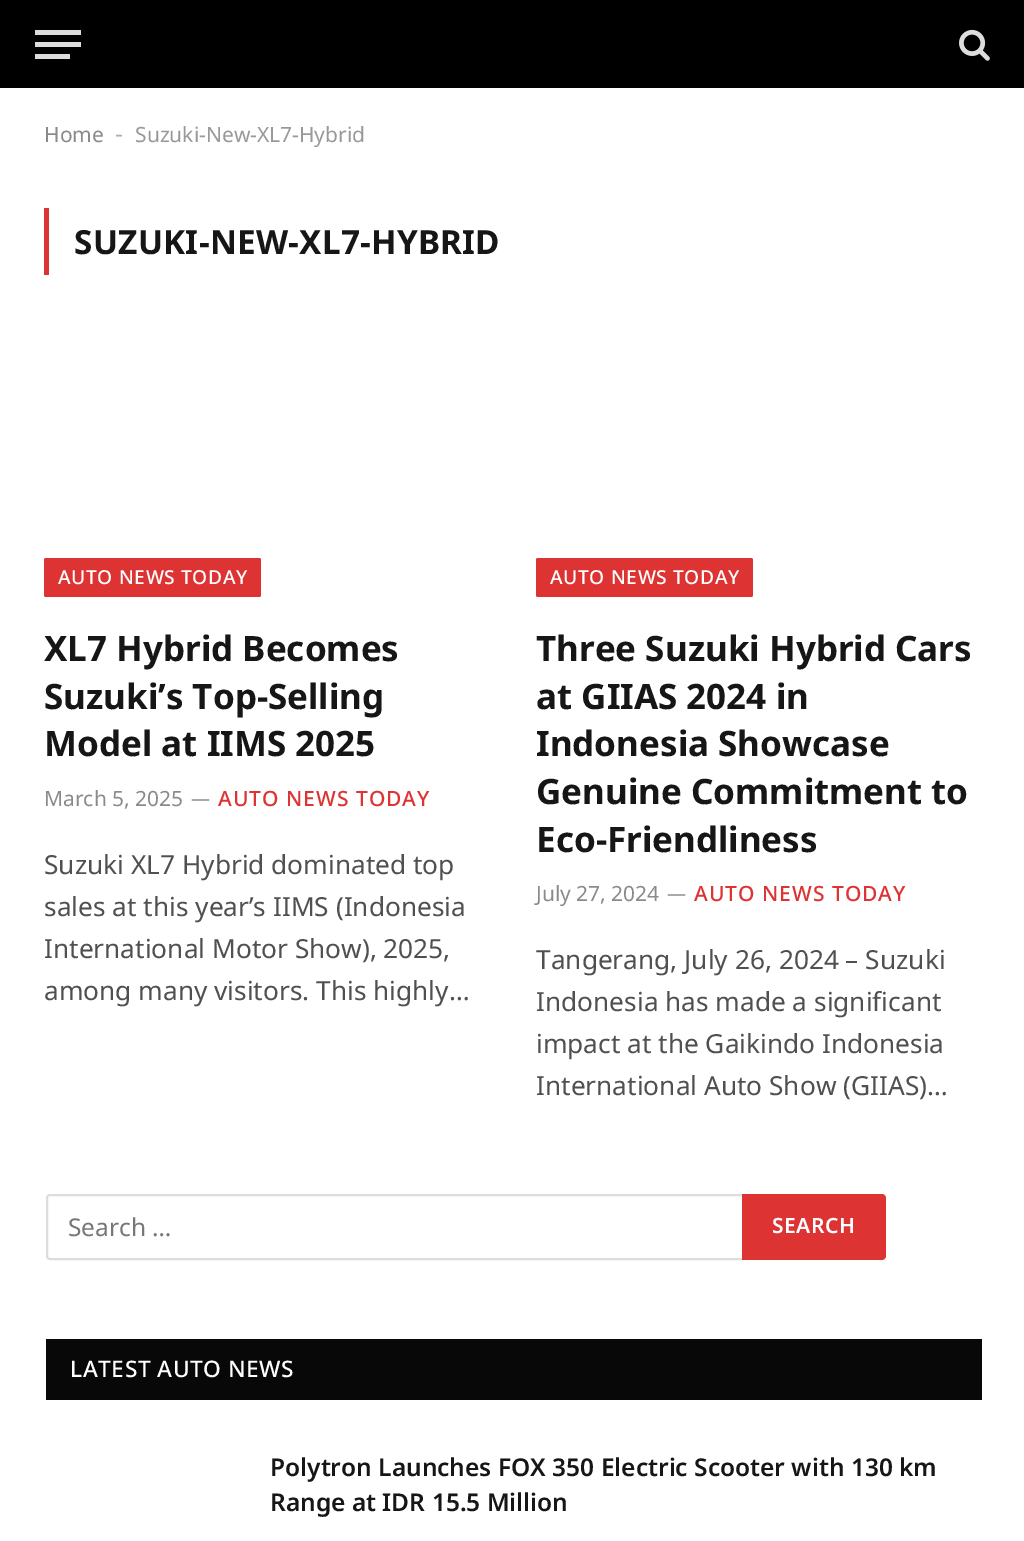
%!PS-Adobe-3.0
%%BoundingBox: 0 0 1024 1541
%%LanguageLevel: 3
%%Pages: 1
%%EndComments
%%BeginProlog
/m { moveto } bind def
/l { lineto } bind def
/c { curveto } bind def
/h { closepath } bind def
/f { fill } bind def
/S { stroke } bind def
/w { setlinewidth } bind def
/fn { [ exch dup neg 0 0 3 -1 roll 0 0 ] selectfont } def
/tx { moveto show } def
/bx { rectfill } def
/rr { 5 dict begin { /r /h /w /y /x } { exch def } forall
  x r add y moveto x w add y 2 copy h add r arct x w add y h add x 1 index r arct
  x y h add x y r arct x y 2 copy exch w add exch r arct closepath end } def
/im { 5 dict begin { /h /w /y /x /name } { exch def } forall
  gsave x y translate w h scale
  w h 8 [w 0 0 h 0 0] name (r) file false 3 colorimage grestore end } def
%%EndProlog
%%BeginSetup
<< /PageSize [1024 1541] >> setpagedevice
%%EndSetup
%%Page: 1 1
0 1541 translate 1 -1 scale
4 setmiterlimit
1 setgray
0 0 1024 1541 bx
0 setgray
0 0 1024 88 bx
0.867 setgray
35 54 35 5 bx
35 30 46 5 bx
35 42 46 5 bx
(image0.raw) 959 29 31 32 im
/NotoSans-Regular 21 fn
0.541 setgray
(Home) 44 142 tx
/LiberationSans-Regular 24 fn
0.678 setgray
(-) 115 142 tx
/NotoSans-Regular 21 fn
0.6 setgray
(Suzuki-New-XL7-Hybrid) 135 142 tx
0.867 0.2 0.2 setrgbcolor
44 208 5 67 bx
/NotoSans-Bold 33.25 fn
0.086 setgray
74 254 m 0.3 0 (SUZUKI-NEW-XL7-HYBRID) ashow
0.867 0.2 0.2 setrgbcolor
44 558 217 39 2 rr f
/NotoSans-Medium 19.25 fn
1 setgray
58 584 m 0.6 0 (AUTO NEWS TODAY) ashow
/NotoSans-Bold 35 fn
0.086 setgray
(XL7 Hybrid Becomes) 44 661 tx
(Suzuki’s Top-Selling) 44 709 tx
(Model at IIMS 2025) 44 756 tx
/NotoSans-Regular 21 fn
0.541 setgray
(March 5, 2025) 44 806 tx
/NotoSans-Regular 19 fn
(—) 191 805 tx
/NotoSans-Medium 21 fn
0.867 0.2 0.2 setrgbcolor
218 806 m 1 0 (AUTO NEWS TODAY) ashow
/NotoSans-Regular 26.25 fn
0.314 setgray
(Suzuki XL7 Hybrid dominated top) 44 874 tx
(sales at this year’s IIMS \(Indonesia) 44 916 tx
(International Motor Show\), 2025,) 44 958 tx
(among many visitors. This highly…) 44 1000 tx
0.867 0.2 0.2 setrgbcolor
536 558 217 39 2 rr f
/NotoSans-Medium 19.25 fn
1 setgray
550 584 m 0.6 0 (AUTO NEWS TODAY) ashow
/NotoSans-Bold 35 fn
0.086 setgray
(Three Suzuki Hybrid Cars) 536 661 tx
(at GIIAS 2024 in) 536 709 tx
(Indonesia Showcase) 536 756 tx
(Genuine Commitment to) 536 804 tx
(Eco-Friendliness) 536 852 tx
/NotoSans-Regular 21 fn
0.541 setgray
(July 27, 2024) 536 901 tx
/NotoSans-Regular 19 fn
(—) 667 900 tx
/NotoSans-Medium 21 fn
0.867 0.2 0.2 setrgbcolor
694 901 m 1 0 (AUTO NEWS TODAY) ashow
/NotoSans-Regular 26.25 fn
0.314 setgray
(Tangerang, July 26, 2024 – Suzuki) 536 969 tx
(Indonesia has made a significant) 536 1011 tx
(impact at the Gaikindo Indonesia) 536 1053 tx
(International Auto Show \(GIIAS\)…) 536 1095 tx
0.867 setgray
2 w
47 1195 698 64 3 rr S
/NotoSans-Regular 24.5 fn
0.467 setgray
(Search …) 68 1236 tx
0.867 0.2 0.2 setrgbcolor
742 1194 m 882 1194 l 884 1194 886 1196 886 1198 c 886 1256 l 886 1258 884 1260 882 1260 c 742 1260 l h f
/NotoSans-SemiBold 21 fn
1 setgray
772 1233 m 0.5 0 (SEARCH) ashow
0.031 setgray
46 1339 936 61 bx
/NotoSans-Medium 22.75 fn
1 setgray
70 1377 m 0.5 0 (LATEST AUTO NEWS) ashow
/NotoSans-SemiBold 24.5 fn
0.086 setgray
(Polytron Launches FOX 350 Electric Scooter with 130 km) 270 1476 tx
(Range at IDR 15.5 Million) 270 1511 tx
showpage
%%EOF
